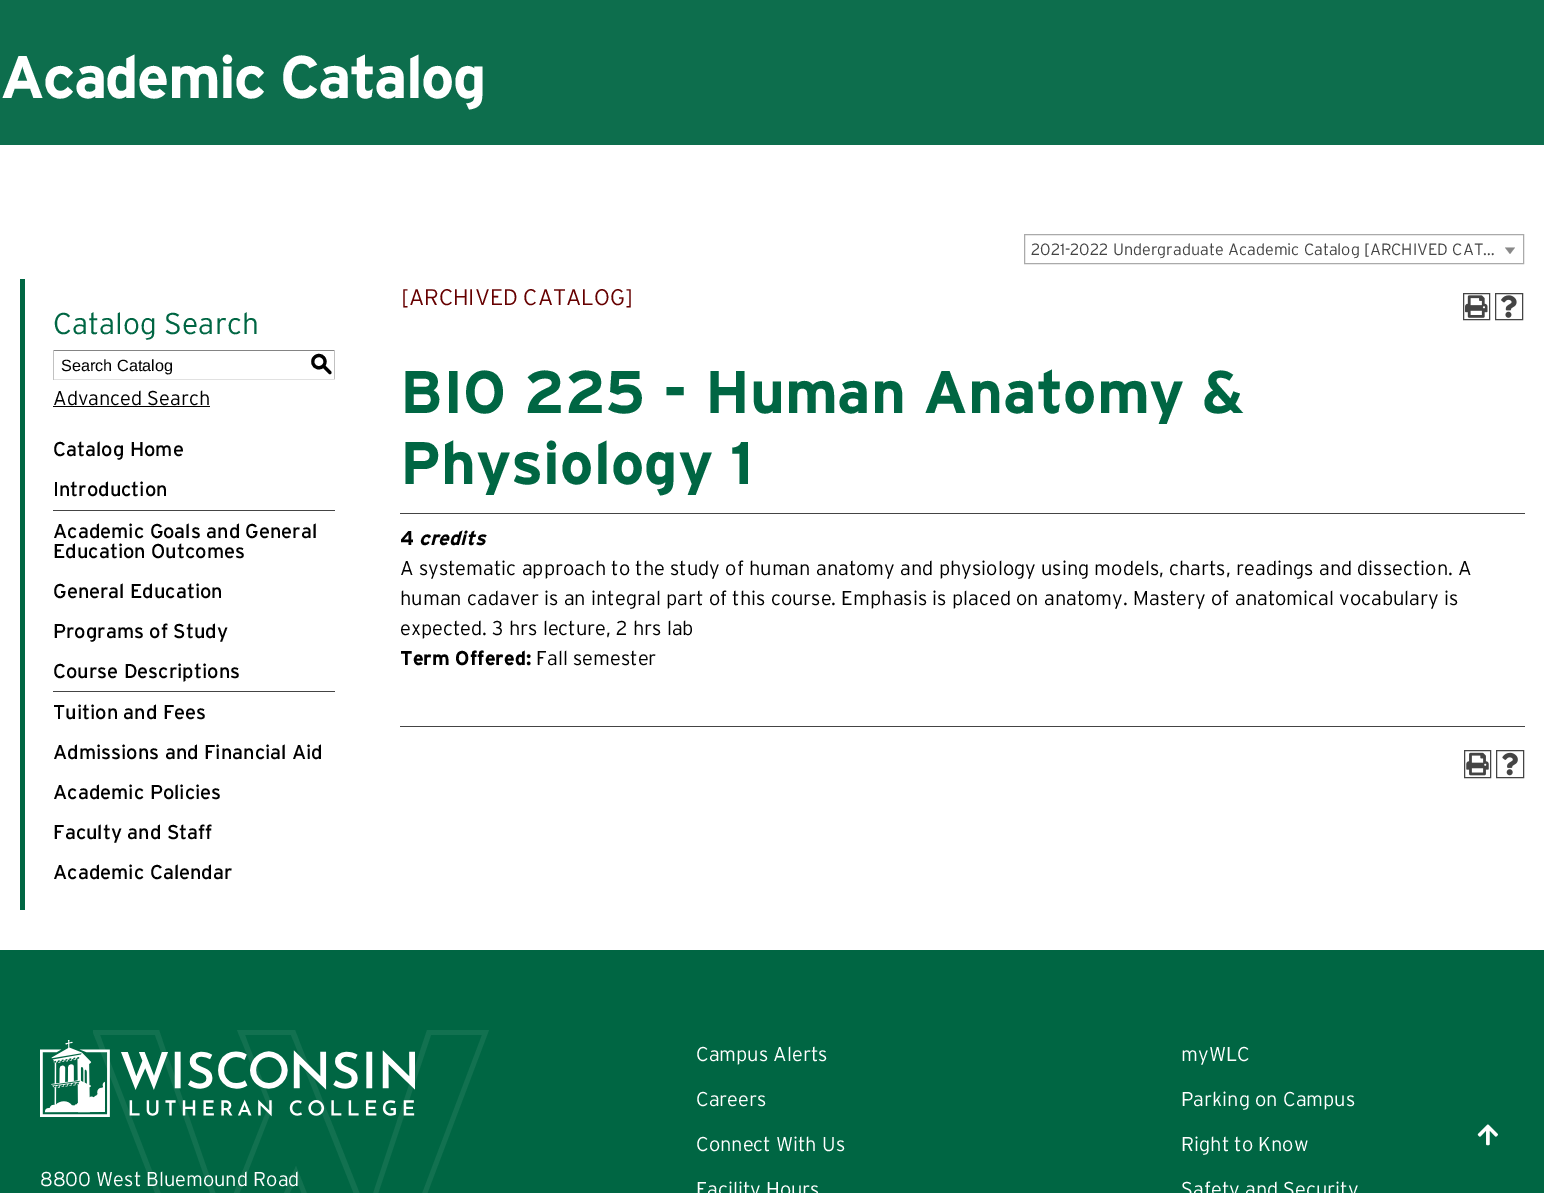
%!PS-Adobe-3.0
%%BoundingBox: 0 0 1544 1193
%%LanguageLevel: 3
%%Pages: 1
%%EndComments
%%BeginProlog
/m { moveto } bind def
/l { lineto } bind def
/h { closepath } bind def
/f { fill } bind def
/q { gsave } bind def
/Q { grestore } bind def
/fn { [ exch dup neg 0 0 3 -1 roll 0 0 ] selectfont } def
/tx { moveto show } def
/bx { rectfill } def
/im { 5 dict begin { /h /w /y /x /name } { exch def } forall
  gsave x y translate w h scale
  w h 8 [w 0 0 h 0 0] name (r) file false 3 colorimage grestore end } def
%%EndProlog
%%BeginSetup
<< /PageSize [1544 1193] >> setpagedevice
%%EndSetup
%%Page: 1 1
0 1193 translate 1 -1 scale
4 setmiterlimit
1 setgray
0 0 1544 1193 bx
0.051 0.431 0.302 setrgbcolor
0 0 1544 145 bx
/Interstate-Bold 60 fn
1 setgray
0 98 m -1.8 0 (Academic Catalog) ashow
0.667 setgray
1024.5 234.5 499 29 rectstroke
/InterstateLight-Light 16.25 fn
0.267 setgray
(2021-2022 Undergraduate Academic Catalog [ARCHIVED CAT…) 1031 255 tx
0.533 setgray
1505 247.5 m 1515 247.5 l 1510 254 l h f
0 0.4 0.263 setrgbcolor
20 279 5 631 bx
/InterstateLight-Light 30 fn
(Catalog Search) 53 334 tx
0.518 setgray
53 350 282 1 bx
0.757 setgray
334 350 1 30 bx
0.882 setgray
53 379 282 1 bx
0.757 setgray
53 350 1 30 bx
/LiberationSans-Regular 16.25 fn
0 setgray
(Search Catalog) 61 371 tx
/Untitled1-Medium 22.5 fn
(S) 310 371 tx
/InterstateLight-Light 20 fn
(Advanced Search) 53 405 tx
53 406 157 1 bx
/Interstate-Regular 20 fn
(Catalog Home) 53 456 tx
(Introduction) 53 496 tx
0.267 setgray
53 510 282 1 bx
0 setgray
(Academic Goals and General) 53 538 tx
(Education Outcomes) 53 558 tx
(General Education) 53 598 tx
(Programs of Study) 53 638 tx
(Course Descriptions) 53 678 tx
0.267 setgray
53 691 282 1 bx
0 setgray
(Tuition and Fees) 53 719 tx
(Admissions and Financial Aid) 53 759 tx
(Academic Policies) 53 799 tx
(Faculty and Staff) 53 839 tx
(Academic Calendar) 53 879 tx
/InterstateLight-Light 22.5 fn
0.4 0 0 setrgbcolor
([ARCHIVED CATALOG]) 401 305 tx
0.267 setgray
1463.5 293.5 26 26 rectstroke
(image0.raw) 1465 295 23 23 im
1495.5 293.5 27 26 rectstroke
(image1.raw) 1501 295 16 23 im
/Interstate-Bold 60 fn
0 0.4 0.263 setrgbcolor
(BIO 225 - Human Anatomy &) 400 413 tx
(Physiology 1) 400 484 tx
0.267 setgray
400 513 1125 1 bx
/Interstate-Bold 20 fn
0 setgray
(4) 400 545 tx
/Interstate-BoldItalic 20 fn
(credits) 419 545 tx
/InterstateLight-Light 20 fn
(A systematic approach to the study of human anatomy and physiology using models, charts, readings and dissection. A) 400 575 tx
(human cadaver is an integral part of this course. Emphasis is placed on anatomy. Mastery of anatomical vocabulary is) 400 605 tx
(expected. 3 hrs lecture, 2 hrs lab) 400 635 tx
/Interstate-Bold 20 fn
(Term Offered:) 400 665 tx
/InterstateLight-Light 20 fn
(Fall semester) 536 665 tx
0.267 setgray
400 726 1125 1 bx
1464.5 750.5 26 27 rectstroke
(image2.raw) 1466 752 23 24 im
1496.5 750.5 27 27 rectstroke
(image3.raw) 1502 752 16 24 im
0 0.4 0.263 setrgbcolor
0 950 1544 243 bx
q
93 1030 396 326 rectclip
0.071 0.443 0.314 setrgbcolor
218 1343 m 296 1166 l 366 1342 l 482 1035 l 431 1035 l 367 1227 l 291 1035 l 245 1035 l 273 1107 l 224 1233 l 155 1035 l 100 1035 l 218 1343 l 218 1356 m 92 1030 l 159 1030 l 224 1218 l 268 1107 l 237 1030 l 295 1030 l 367 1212 l 427 1030 l 489 1030 l 366 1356 l 296 1179 l h f
Q
(image4.raw) 40 1040 375 77 im
1 setgray
(8800 West Bluemound Road) 40 1186 tx
(Campus Alerts) 696 1061 tx
(myWLC) 1181 1061 tx
(Careers) 696 1106 tx
(Parking on Campus) 1181 1106 tx
(Connect With Us) 696 1151 tx
(Right to Know) 1181 1151 tx
(Facility Hours) 696 1196 tx
(Safety and Security) 1181 1196 tx
(image5.raw) 1477 1124 21 22 im
showpage
%%EOF
